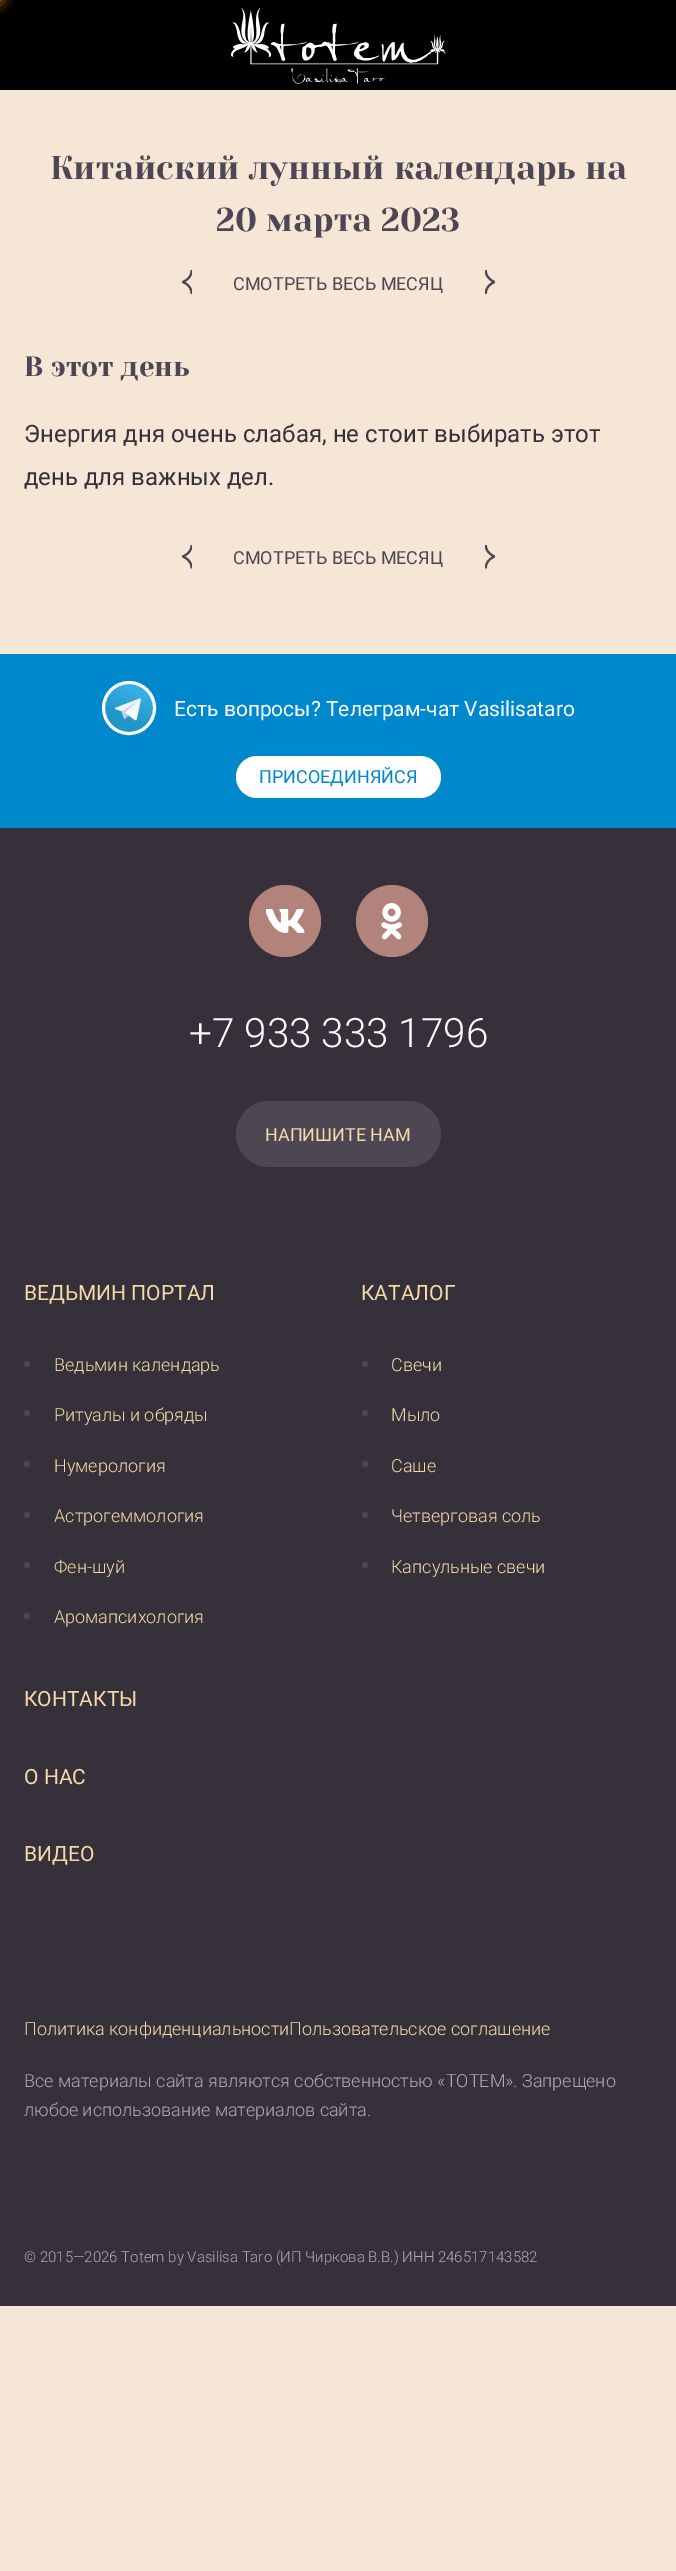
%!PS-Adobe-3.0
%%BoundingBox: 0 0 676 2571
%%LanguageLevel: 3
%%Pages: 1
%%EndComments
%%BeginProlog
/f { fill } bind def
/S { stroke } bind def
/w { setlinewidth } bind def
/fn { [ exch dup neg 0 0 3 -1 roll 0 0 ] selectfont } def
/tx { moveto show } def
/bx { rectfill } def
/al { dup .setfillconstantalpha .setstrokeconstantalpha } def
/ci { newpath 0 360 arc closepath } def
/rr { 5 dict begin { /r /h /w /y /x } { exch def } forall
  x r add y moveto x w add y 2 copy h add r arct x w add y h add x 1 index r arct
  x y h add x y r arct x y 2 copy exch w add exch r arct closepath end } def
/sh { 12 dict begin { /a /b /q /h /w /y /x } { exch def } forall gsave /was 0 def
  9 -2 -9 { dup b mul 4 div /e exch def 1 sub .425 mul 2.718 exch exp 1 add a .99 .min exch div /now exch def
    1 1 now sub 1 was sub div sub al /was now def
    w h .min e 2 mul add 0 gt { x e sub y e sub w e 2 mul add h e 2 mul add
      q e add b .6 mul add w h .min 2 div e add .min 0 .max rr fill } if } for grestore end } def
/im { 5 dict begin { /h /w /y /x /name } { exch def } forall
  gsave x y translate w h scale
  w h 8 [w 0 0 h 0 0] name (r) file false 3 colorimage grestore end } def
%%EndProlog
%%BeginSetup
<< /PageSize [676 2571] /PageUsesTransparency true >> setpagedevice
%%EndSetup
%%Page: 1 1
0 .pushpdf14devicefilter
0 2571 translate 1 -1 scale
4 setmiterlimit
0.961 0.902 0.839 setrgbcolor
0 0 676 2571 bx
0 setgray
0 0 676 90 bx
(image0.raw) 231 8 215 76 im
0.937 0.498 0.106 setrgbcolor
-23 -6 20 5 0 7.5 1 sh
-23 -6 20 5 0 7.5 1 sh
/YesevaOne-Regular 33 fn
0.302 0.278 0.325 setrgbcolor
(Китайский лунный календарь на) 50 179 tx
(20 марта 2023) 216 231 tx
(image1.raw) 182 270 10 24 im
/Roboto-Regular 18 fn
(СМОТРЕТЬ ВЕСЬ МЕСЯЦ) 233 290 tx
(image2.raw) 485 270 10 24 im
/YesevaOne-Regular 28 fn
(В этот день) 24 376 tx
/Roboto-Regular 24 fn
0.208 0.188 0.227 setrgbcolor
(Энергия дня очень слабая, не стоит выбирать этот) 24 442 tx
(день для важных дел.) 24 485 tx
(image3.raw) 182 545 10 24 im
/Roboto-Regular 18 fn
0.302 0.278 0.325 setrgbcolor
(СМОТРЕТЬ ВЕСЬ МЕСЯЦ) 233 564 tx
(image4.raw) 485 545 10 24 im
0 0.533 0.8 setrgbcolor
0 654 676 174 bx
(image5.raw) 105 684 48 48 im
1 setgray
3 w
129 708 25.5 ci S
/Roboto-Regular 21 fn
(Есть вопросы? Телеграм‑чат Vasilisataro) 174 716 tx
236 756 205 42 21 rr f
/Roboto-Regular 18 fn
0 0.533 0.8 setrgbcolor
(ПРИСОЕДИНЯЙСЯ) 259 783 tx
0.208 0.188 0.227 setrgbcolor
0 828 676 1478 bx
0.698 0.514 0.482 setrgbcolor
285 921 36 ci f
(image6.raw) 266 909 39 24 im
392 921 36 ci f
(image7.raw) 381 903 21 37 im
/Roboto-Light 40.5 fn
1 setgray
(+7 933 333 1796) 189 1047 tx
0.302 0.278 0.325 setrgbcolor
236 1101 205 66 33 rr f
/Roboto-Regular 18 fn
0.957 0.855 0.659 setrgbcolor
(НАПИШИТЕ НАМ) 265 1141 tx
/Roboto-Regular 21 fn
(ВЕДЬМИН ПОРТАЛ) 24 1300 tx
0.302 0.278 0.325 setrgbcolor
27 1364 3 ci f
/Roboto-Light 18 fn
0.957 0.855 0.659 setrgbcolor
(Ведьмин календарь) 54 1371 tx
0.302 0.278 0.325 setrgbcolor
27 1413 3 ci f
0.957 0.855 0.659 setrgbcolor
(Ритуалы и обряды) 54 1421 tx
0.302 0.278 0.325 setrgbcolor
27 1464 3 ci f
0.957 0.855 0.659 setrgbcolor
(Нумерология) 54 1472 tx
0.302 0.278 0.325 setrgbcolor
27 1515 3 ci f
0.957 0.855 0.659 setrgbcolor
(Астрогеммология) 54 1522 tx
0.302 0.278 0.325 setrgbcolor
27 1565 3 ci f
0.957 0.855 0.659 setrgbcolor
(Фен-шуй) 54 1573 tx
0.302 0.278 0.325 setrgbcolor
27 1616 3 ci f
0.957 0.855 0.659 setrgbcolor
(Аромапсихология) 54 1623 tx
/Roboto-Regular 21 fn
(КАТАЛОГ) 361 1300 tx
0.302 0.278 0.325 setrgbcolor
365 1364 3 ci f
/Roboto-Light 18 fn
0.957 0.855 0.659 setrgbcolor
(Свечи) 391 1371 tx
0.302 0.278 0.325 setrgbcolor
365 1413 3 ci f
0.957 0.855 0.659 setrgbcolor
(Мыло) 391 1421 tx
0.302 0.278 0.325 setrgbcolor
365 1464 3 ci f
0.957 0.855 0.659 setrgbcolor
(Саше) 391 1472 tx
0.302 0.278 0.325 setrgbcolor
365 1515 3 ci f
0.957 0.855 0.659 setrgbcolor
(Четверговая соль) 391 1522 tx
0.302 0.278 0.325 setrgbcolor
365 1565 3 ci f
0.957 0.855 0.659 setrgbcolor
(Капсульные свечи) 391 1573 tx
/Roboto-Regular 21 fn
(КОНТАКТЫ) 24 1706 tx
(О НАС) 24 1784 tx
(ВИДЕО) 24 1861 tx
/Roboto-Light 18 fn
(Политика конфиденциальностиПользовательское соглашение) 24 2035 tx
0.682 0.675 0.69 setrgbcolor
(Все материалы сайта являются собственностью «ТОТЕМ». Запрещено) 24 2087 tx
(любое использование материалов сайта.) 24 2116 tx
/Roboto-Light 15 fn
(© 2015—2026 Totem by Vasilisa Taro \(ИП Чиркова В.В.\) ИНН 246517143582) 24 2262 tx
.poppdf14devicefilter showpage
%%EOF
